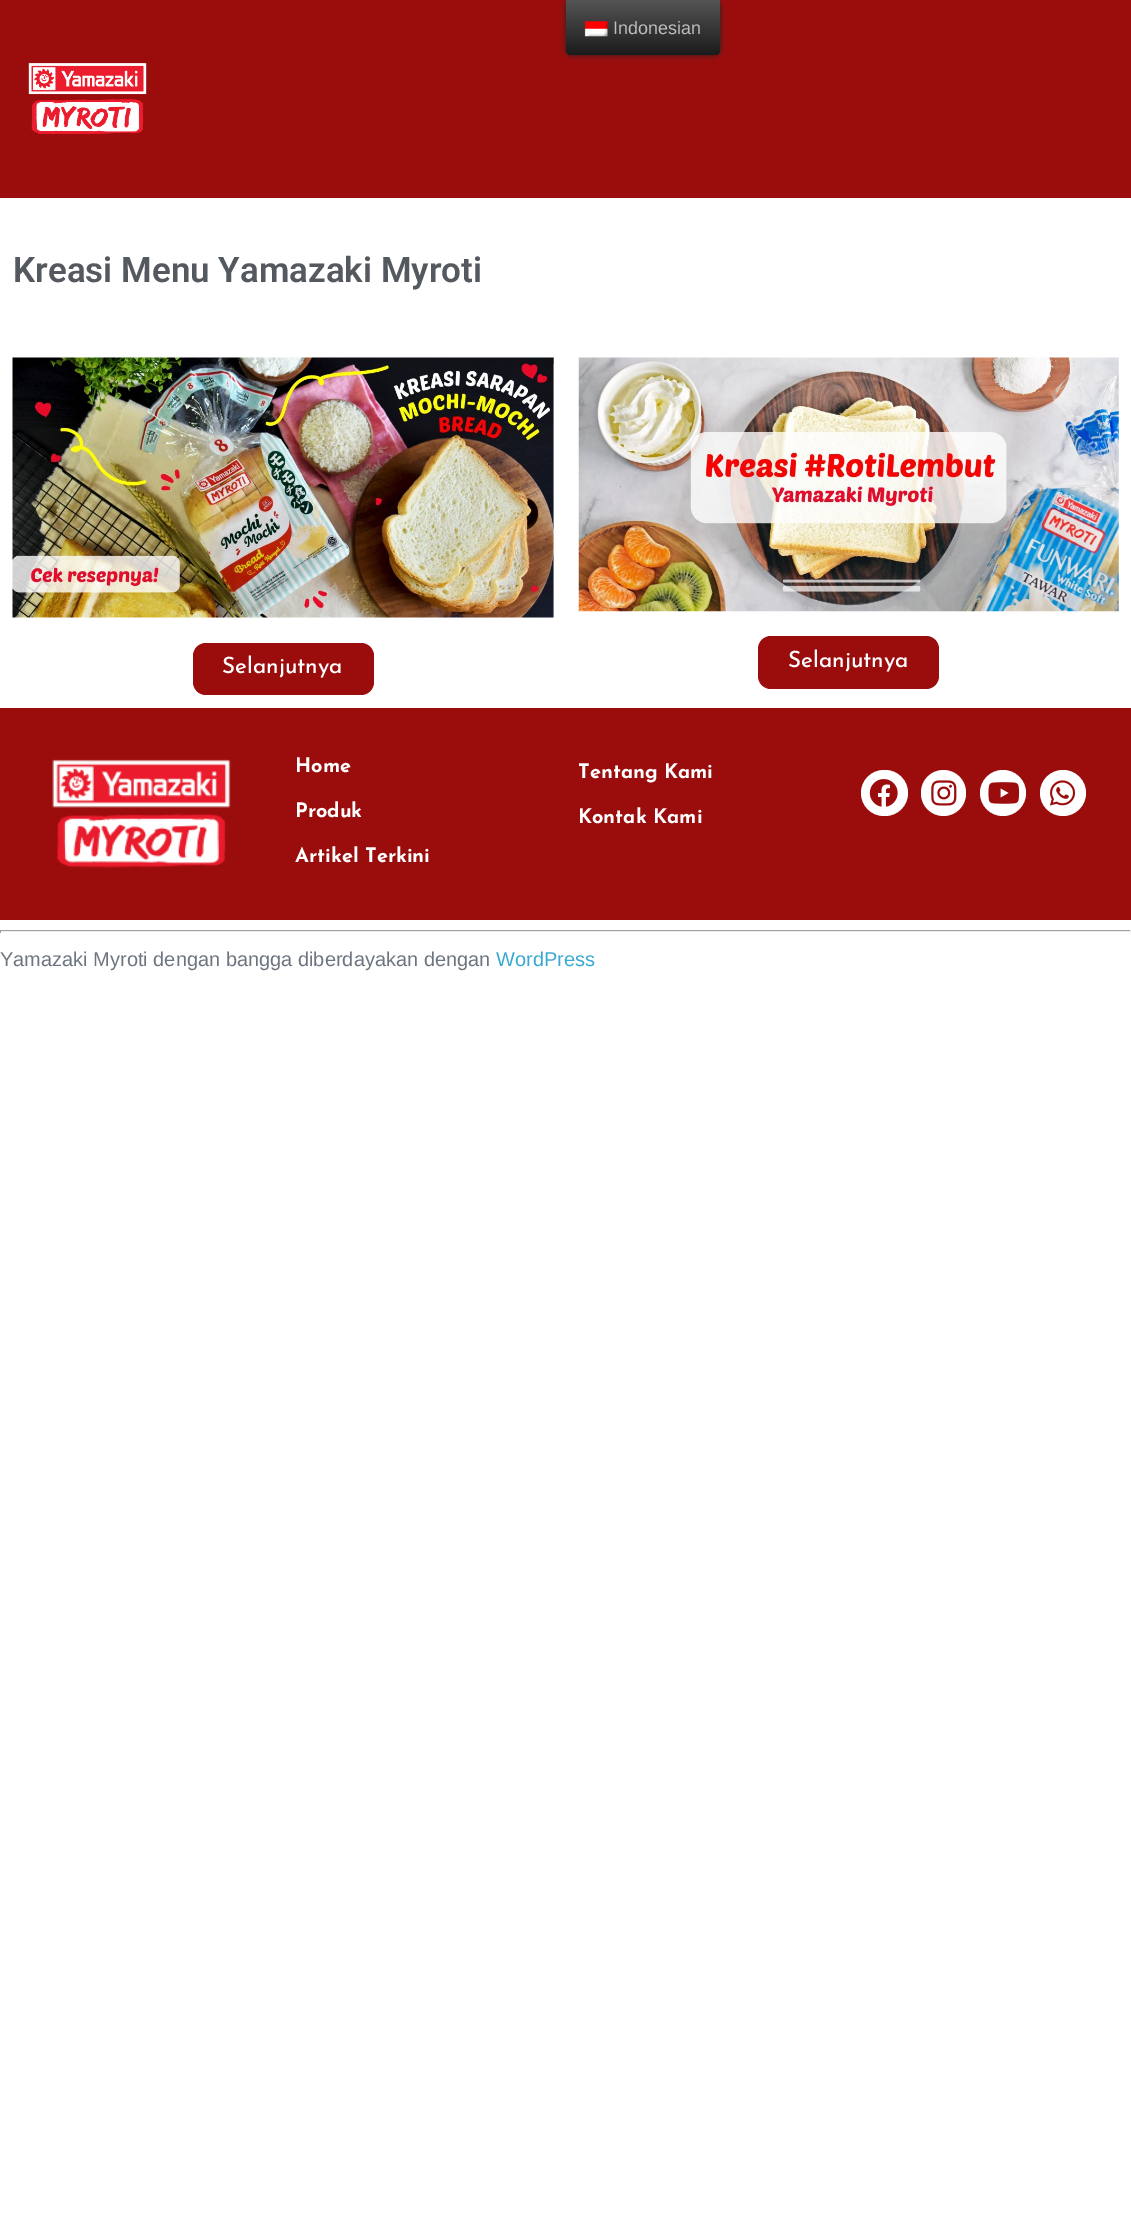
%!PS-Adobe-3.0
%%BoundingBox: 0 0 1131 2231
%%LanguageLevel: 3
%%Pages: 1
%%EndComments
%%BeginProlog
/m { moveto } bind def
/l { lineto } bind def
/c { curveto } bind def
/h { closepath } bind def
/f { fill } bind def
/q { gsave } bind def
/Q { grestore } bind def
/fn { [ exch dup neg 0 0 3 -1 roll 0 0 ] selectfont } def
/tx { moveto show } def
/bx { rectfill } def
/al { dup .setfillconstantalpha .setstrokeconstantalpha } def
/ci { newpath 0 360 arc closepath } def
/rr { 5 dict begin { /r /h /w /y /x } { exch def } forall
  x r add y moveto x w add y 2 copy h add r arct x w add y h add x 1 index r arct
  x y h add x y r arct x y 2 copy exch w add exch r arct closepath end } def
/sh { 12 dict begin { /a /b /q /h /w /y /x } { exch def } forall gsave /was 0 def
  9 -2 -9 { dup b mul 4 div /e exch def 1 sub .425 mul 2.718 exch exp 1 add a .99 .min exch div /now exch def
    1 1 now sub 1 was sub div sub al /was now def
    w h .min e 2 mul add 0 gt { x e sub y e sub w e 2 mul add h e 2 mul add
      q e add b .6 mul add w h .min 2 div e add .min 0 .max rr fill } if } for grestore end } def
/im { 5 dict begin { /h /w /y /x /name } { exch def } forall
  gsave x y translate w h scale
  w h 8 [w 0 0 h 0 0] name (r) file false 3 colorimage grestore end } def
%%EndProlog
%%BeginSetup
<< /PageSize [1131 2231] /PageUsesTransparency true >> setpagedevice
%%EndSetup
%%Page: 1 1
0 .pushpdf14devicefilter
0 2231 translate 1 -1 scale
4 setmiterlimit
1 setgray
0 0 1131 2231 bx
0.608 0.051 0.051 setrgbcolor
0 0 1131 198 bx
0.129 setgray
566 0 154 55 6 3 1 sh
q 566 0 m 720 0 l 720 49 l 720 52.5 717.5 55 714 55 c 572 55 l 568.5 55 566 52.5 566 49 c h clip newpath
<< /ShadingType 2 /ColorSpace /DeviceRGB /Coords [643 55 643 0] /Extend [true true] /Function << /FunctionType 2 /Domain [0 1] /C0 [0.106 0.106 0.106] /C1 [0.329 0.329 0.329] /N 1 >> >> shfill Q
(image0.raw) 584 21 24 16 im
/LiberationSans-Regular 18 fn
0.741 setgray
(Indonesian) 613 34 tx
(image1.raw) 28 63 119 72 im
/Roboto-SemiBold 35 fn
0.329 0.349 0.373 setrgbcolor
(Kreasi Menu Yamazaki Myroti) 13 282 tx
(image2.raw) 12 357 542 261 im
0.608 0.051 0.051 setrgbcolor
193 643 181 52 13 rr f
/JosefinSans-Medium 22.5 fn
1 setgray
(Selanjutnya) 222 673 tx
(image3.raw) 578 357 541 255 im
0.608 0.051 0.051 setrgbcolor
758 636 181 53 13 rr f
1 setgray
(Selanjutnya) 788 667 tx
0.608 0.051 0.051 setrgbcolor
0 708 1131 212 bx
(image4.raw) 52 759 179 109 im
/JosefinSans-Bold 20 fn
1 setgray
(Home) 295 772 tx
(Produk) 295 817 tx
(Artikel Terkini) 295 862 tx
(Tentang Kami) 578 778 tx
(Kontak Kami) 578 823 tx
861 770 47 46 23 rr f
(image5.raw) 869 779 29 28 im
921 770 45 46 22.5 rr f
(image6.raw) 931 780 26 26 im
1003 793 23 ci f
(image7.raw) 988 782 32 22 im
1063 793 23 ci f
(image8.raw) 1050 780 26 26 im
0.624 setgray
0 930 1131 1 bx
0.933 setgray
1130 930 1 3 bx
0 931 1131 1 bx
0.624 setgray
0 930 1 3 bx
/LiberationSans-Regular 20 fn
0.427 0.463 0.502 setrgbcolor
(Yamazaki Myroti dengan bangga diberdayakan dengan) 0 966 tx
0.231 0.663 0.824 setrgbcolor
(WordPress) 496 966 tx
.poppdf14devicefilter showpage
%%EOF
